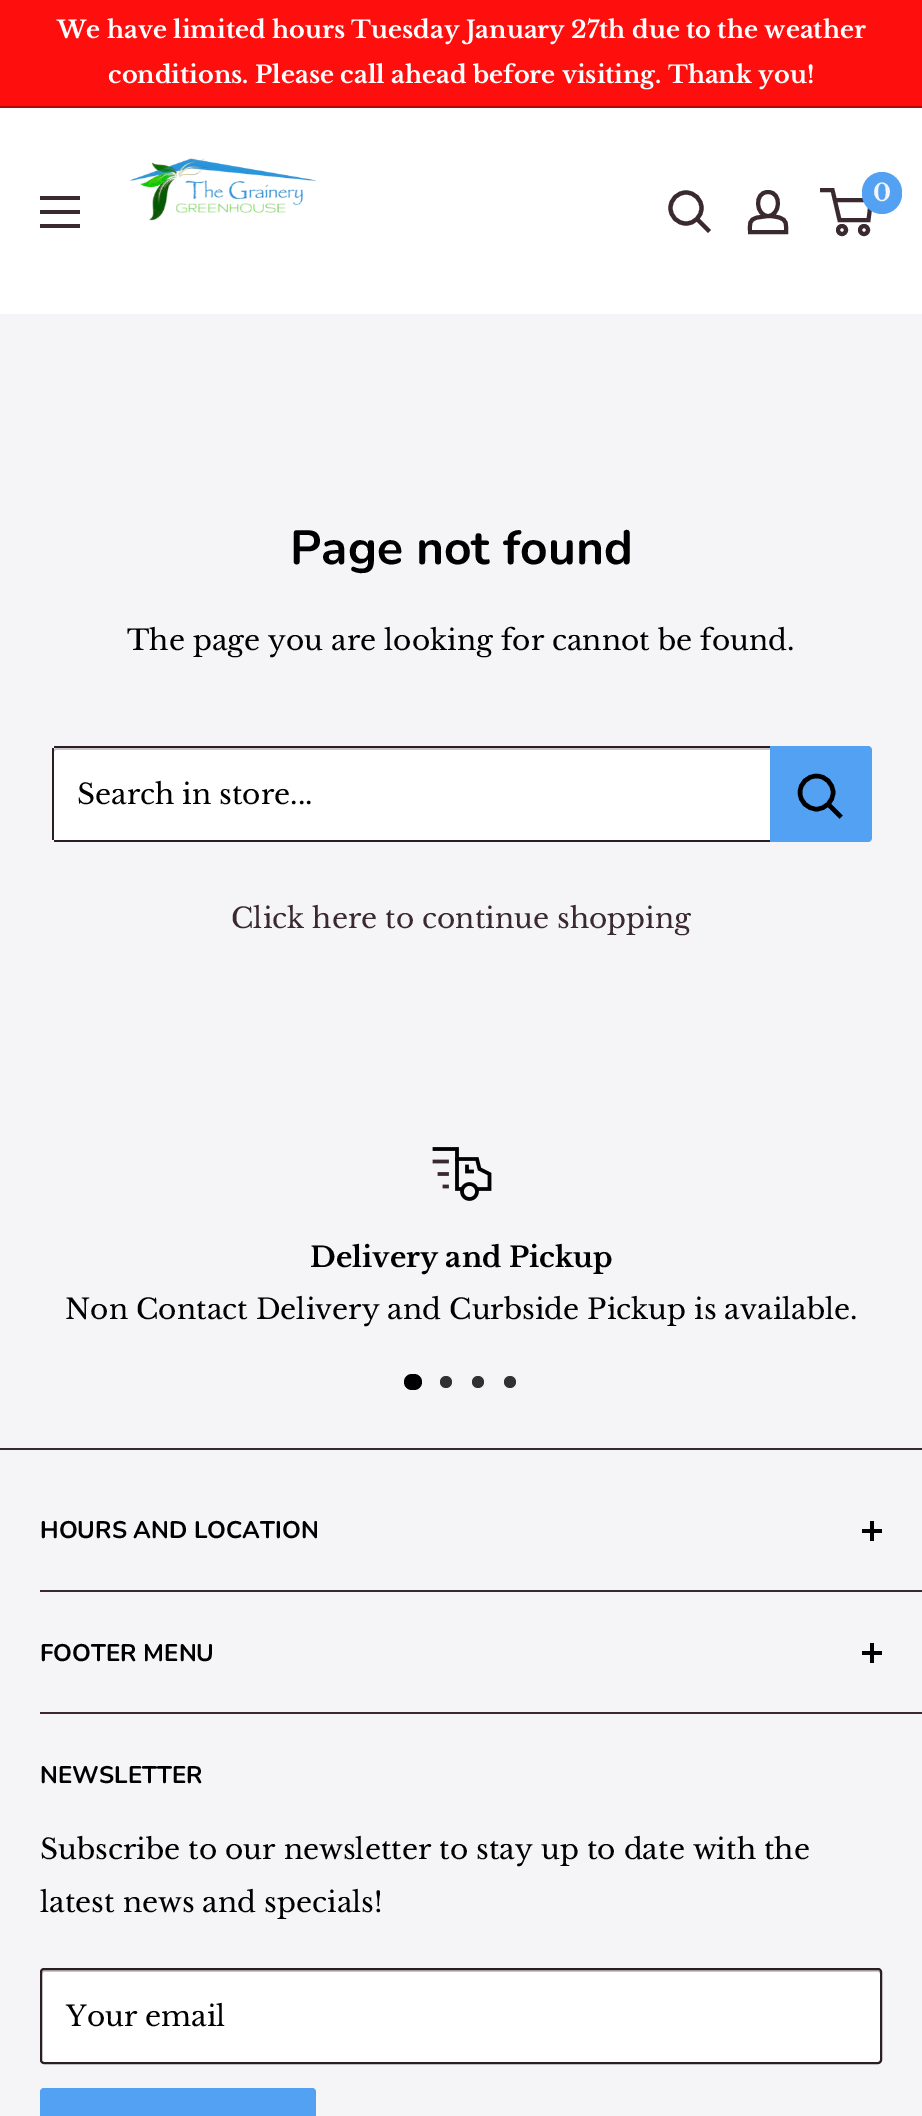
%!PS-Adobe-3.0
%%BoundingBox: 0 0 922 2116
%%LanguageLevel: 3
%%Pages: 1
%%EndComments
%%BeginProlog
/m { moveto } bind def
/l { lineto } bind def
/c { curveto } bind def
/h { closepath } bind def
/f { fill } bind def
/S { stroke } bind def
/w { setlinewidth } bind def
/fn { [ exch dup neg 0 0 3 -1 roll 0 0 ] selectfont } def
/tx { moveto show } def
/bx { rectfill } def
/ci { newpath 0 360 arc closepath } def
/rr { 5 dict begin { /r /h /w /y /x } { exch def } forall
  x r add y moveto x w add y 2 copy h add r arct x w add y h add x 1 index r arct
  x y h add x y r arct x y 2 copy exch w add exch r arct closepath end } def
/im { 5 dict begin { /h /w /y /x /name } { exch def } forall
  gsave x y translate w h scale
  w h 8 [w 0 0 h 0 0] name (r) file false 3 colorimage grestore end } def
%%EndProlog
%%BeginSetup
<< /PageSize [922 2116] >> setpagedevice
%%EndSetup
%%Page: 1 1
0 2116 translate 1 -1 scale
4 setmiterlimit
0.961 0.961 0.973 setrgbcolor
0 0 922 2116 bx
1 0.055 0.055 setrgbcolor
0 0 922 106 bx
0.702 0.039 0.039 setrgbcolor
0 106 922 2 bx
/LibreBaskerville-Bold 24 fn
1 setgray
(We have limited hours Tuesday January 27th due to the weather) 57 38 tx
(conditions. Please call ahead before visiting. Thank you!) 108 83 tx
0 108 922 206 bx
(image0.raw) 130 158 186 63 im
0.227 0.165 0.184 setrgbcolor
4.2 w
2 setlinecap
708 230 m 697.5 219.5 l S
0 setlinecap
686 208 15.5 ci S
4 w
768 216 m 772 216 775.5 216.5 779 217.5 c 787.5 220 786 224.5 786 232 c 750 232 l 750 224 748.5 219.5 757.5 217.5 c h 768 216 m 756 216 753.5 192 768 192 c 782.5 192 780 216 768 216 c h S
842 230 4 ci S
864 230 4 ci S
834.5 200 m 871 200 l 868.5 220 l 839.5 220 l 832.5 190 l 820 190 l S
0.325 0.631 0.949 setrgbcolor
862 172 40 42 20 rr f
0.961 0.961 0.973 setrgbcolor
(0) 873 201 tx
0.227 0.165 0.184 setrgbcolor
40 224 m 80 224 l 80 228 l 40 228 l h 40 196 m 80 196 l 80 200 l 40 200 l h 40 210 m 80 210 l 80 214 l 40 214 l h eofill
/Nunito-Bold 48 fn
0 setgray
(Page not found) 290 564 tx
/LibreBaskerville-Regular 28 fn
(The page you are looking for cannot be found.) 127 650 tx
1 setgray
56 746 m 770 746 l 770 842 l 56 842 l 54 842 52 840 52 838 c 52 750 l 52 748 54 746 56 746 c h f
0.792 0.78 0.784 setrgbcolor
56 750 m 770 750 l 770 748 l 56 748 l 54 749 l 54 752 l 54 751 55 750 56 750 c h f
0.169 0.122 0.137 setrgbcolor
54 746 716 2 bx
54 840 716 2 bx
52 748 2 92 bx
0 setgray
(Search in store...) 77 804 tx
0.325 0.631 0.949 setrgbcolor
770 746 m 868 746 l 870 746 872 748 872 750 c 872 838 l 872 840 870 842 868 842 c 770 842 l h f
0 setgray
4.4 w
2 setlinecap
839.5 815.5 m 828.5 804.5 l S
0 setlinecap
816.5 792.5 16.5 ci S
0.227 0.165 0.184 setrgbcolor
(Click here to continue shopping) 231 928 tx
(image1.raw) 432 1147 60 54 im
/LibreBaskerville-Bold 28 fn
0 setgray
(Delivery and Pickup) 310 1267 tx
/LibreBaskerville-Regular 28 fn
(Non Contact Delivery and Curbside Pickup is available.) 65 1319 tx
404 1374 18 16 8 rr f
0.192 0.192 0.196 setrgbcolor
446 1382 6 ci f
478 1382 6 ci f
510 1382 6 ci f
0.227 0.165 0.184 setrgbcolor
0 1448 922 2 bx
40 1590 882 2 bx
/Nunito-Bold 24 fn
0 setgray
(HOURS AND LOCATION) 40 1538 tx
870 1521 4 20 bx
862 1529 20 4 bx
0.227 0.165 0.184 setrgbcolor
40 1712 882 2 bx
0 setgray
(FOOTER MENU) 40 1661 tx
870 1643 4 20 bx
862 1651 20 4 bx
(NEWSLETTER) 40 1783 tx
/LibreBaskerville-Regular 28 fn
(Subscribe to our newsletter to stay up to date with the) 40 1859 tx
(latest news and specials!) 40 1912 tx
1 setgray
40 1968 842 96 4 rr f
0.792 0.78 0.784 setrgbcolor
44 1972 m 878 1972 l 879 1972 880 1973 880 1974 c 880 1971 l 878 1970 l 43 1970 l 42 1971 42 1973 42 1974 c 42 1973 43 1972 44 1972 c h f
0.169 0.122 0.137 setrgbcolor
2 w
41 1969 840 94 3 rr S
0 setgray
(Your email) 66 2026 tx
0.325 0.631 0.949 setrgbcolor
40 2088 276 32 4 rr f
showpage
%%EOF
